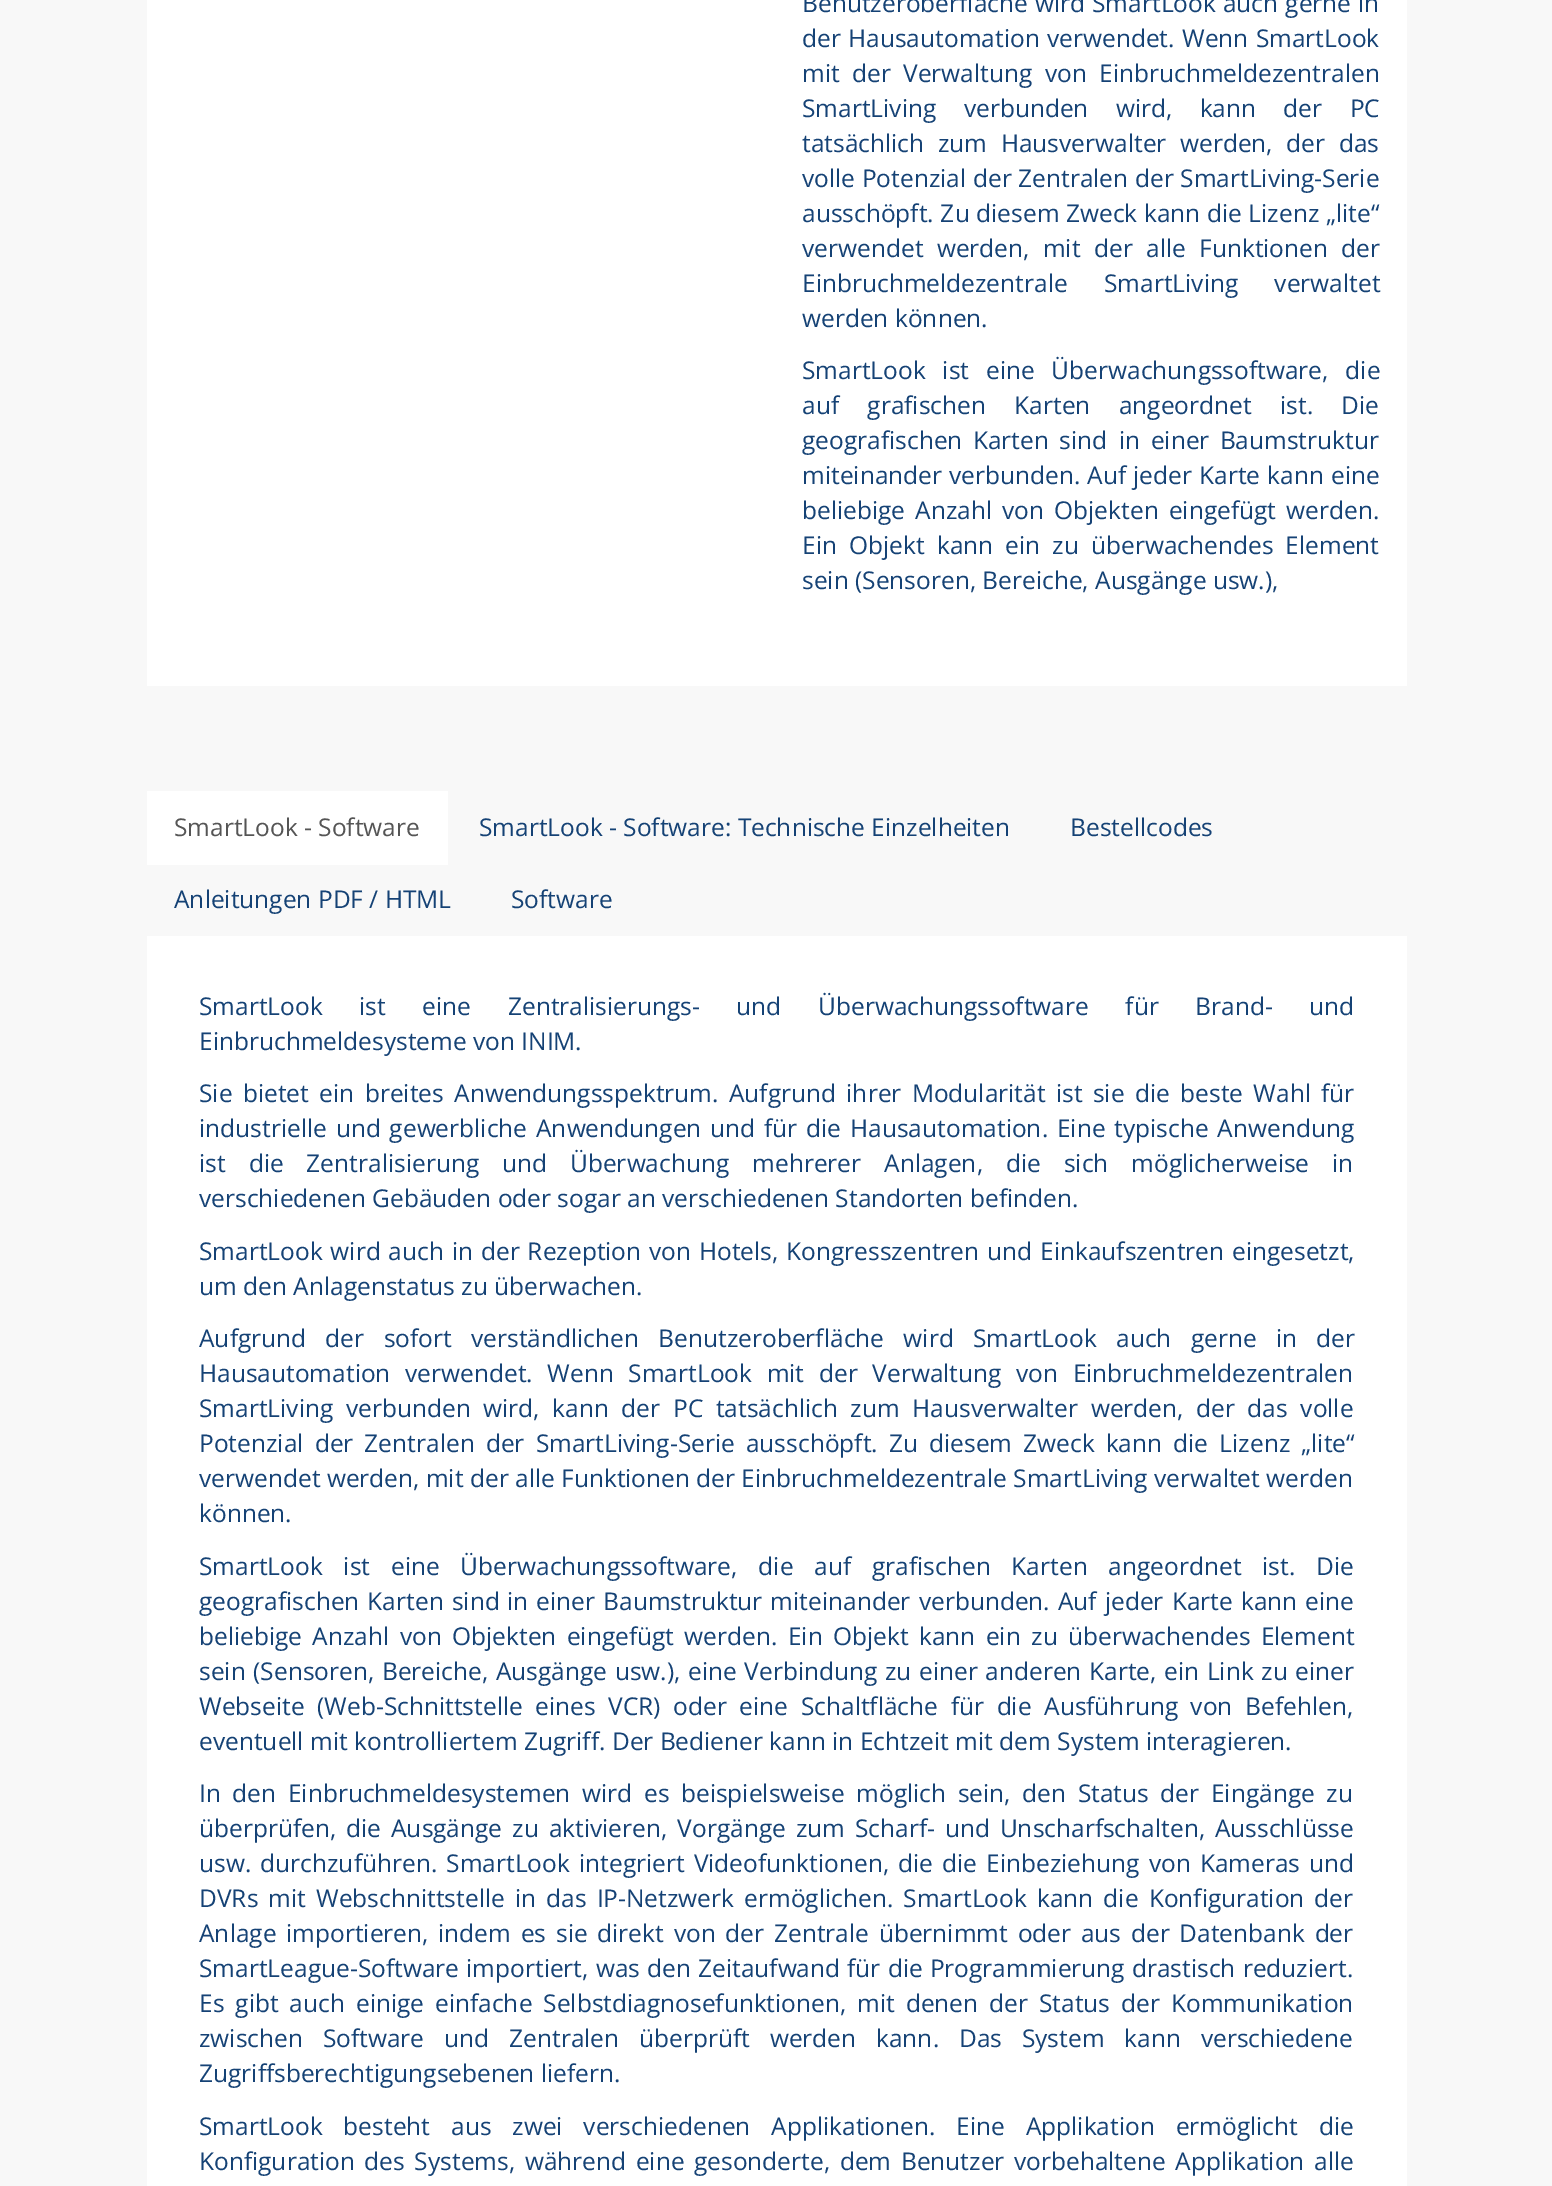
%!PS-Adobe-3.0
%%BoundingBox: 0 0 1552 2186
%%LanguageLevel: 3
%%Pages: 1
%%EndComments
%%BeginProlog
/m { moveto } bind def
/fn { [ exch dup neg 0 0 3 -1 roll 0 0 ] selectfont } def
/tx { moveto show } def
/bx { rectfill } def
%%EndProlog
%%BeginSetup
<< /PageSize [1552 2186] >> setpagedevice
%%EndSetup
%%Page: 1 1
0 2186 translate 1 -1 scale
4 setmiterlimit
0.973 setgray
0 0 1552 2186 bx
1 setgray
147 0 1260 686 bx
/OpenSans-Regular 24.5 fn
0.082 0.259 0.459 setrgbcolor
802 12 m 0.75 0 32 (Benutzeroberfläche wird SmartLook auch gerne in) widthshow
802 47 m 1 0 32 (der Hausautomation verwendet. Wenn SmartLook) widthshow
802 82 m 6 0 32 (mit der Verwaltung von Einbruchmeldezentralen) widthshow
802 117 m 21 0 32 (SmartLiving verbunden wird, kann der PC) widthshow
802 152 m 7.25 0 32 (tatsächlich zum Hausverwalter werden, der das) widthshow
802 187 m 0.25 0 32 (volle Potenzial der Zentralen der SmartLiving-Serie) widthshow
802 222 m 0.25 0 32 (ausschöpft. Zu diesem Zweck kann die Lizenz „lite“) widthshow
802 257 m 7 0 32 (verwendet werden, mit der alle Funktionen der) widthshow
802 292 m 30 0 32 (Einbruchmeldezentrale SmartLiving verwaltet) widthshow
(werden können.) 802 327 tx
802 379 m 10.5 0 32 (SmartLook ist eine Überwachungssoftware, die) widthshow
802 414 m 22 0 32 (auf grafischen Karten angeordnet ist. Die) widthshow
802 449 m 4 0 32 (geografischen Karten sind) widthshow
1119 449 m 4 0 32 (in einer Baumstruktur) widthshow
802 484 m 0.75 0 32 (miteinander verbunden. Auf jeder Karte kann eine) widthshow
802 519 m 3.75 0 32 (beliebige Anzahl von Objekten eingefügt werden.) widthshow
802 554 m 5.75 0 32 (Ein Objekt kann ein zu überwachendes Element) widthshow
(sein \(Sensoren, Bereiche, Ausgänge usw.\),) 802 589 tx
1 setgray
147 791 301 74 bx
0.333 setgray
(SmartLook - Software) 174 836 tx
0.082 0.259 0.459 setrgbcolor
(SmartLook - Software: Technische Einzelheiten) 479 836 tx
(Bestellcodes) 1070 836 tx
(Anleitungen PDF / HTML) 174 908 tx
(Software) 511 908 tx
1 setgray
147 936 1260 1250 bx
0.082 0.259 0.459 setrgbcolor
199 1015 m 30.25 0 32 (SmartLook ist eine Zentralisierungs- und Überwachungssoftware für Brand- und) widthshow
(Einbruchmeldesysteme von INIM.) 199 1050 tx
199 1102 m 4 0 32 (Sie bietet ein breites Anwendungsspektrum. Aufgrund ihrer Modularität ist sie die beste Wahl für) widthshow
199 1137 m 2.5 0 32 (industrielle und gewerbliche Anwendungen und für die Hausautomation. Eine typische Anwendung) widthshow
199 1172 m 16.6 0 32 (ist die Zentralisierung und Überwachung mehrerer Anlagen, die sich möglicherweise in) widthshow
(verschiedenen Gebäuden oder sogar an verschiedenen Standorten befinden.) 199 1207 tx
199 1260 m 1.5 0 32 (SmartLook wird auch in der Rezeption von Hotels, Kongresszentren und Einkaufszentren eingesetzt,) widthshow
(um den Anlagenstatus zu überwachen.) 199 1295 tx
199 1347 m 13 0 32 (Aufgrund der sofort verständlichen Benutzeroberfläche wird SmartLook auch gerne in der) widthshow
199 1382 m 8.25 0 32 (Hausautomation verwendet. Wenn SmartLook mit der Verwaltung von Einbruchmeldezentralen) widthshow
199 1417 m 6.25 0 32 (SmartLiving verbunden wird, kann der PC tatsächlich zum Hausverwalter werden, der das volle) widthshow
199 1452 m 4.75 0 32 (Potenzial der Zentralen der SmartLiving-Serie ausschöpft. Zu diesem Zweck kann die Lizenz „lite“) widthshow
(verwendet werden, mit der alle Funktionen der Einbruchmeldezentrale SmartLiving verwaltet werden) 199 1487 tx
(können.) 199 1522 tx
199 1575 m 14.5 0 32 (SmartLook ist eine Überwachungssoftware, die auf grafischen Karten angeordnet ist. Die) widthshow
199 1610 m 1.75 0 32 (geografischen Karten sind) widthshow
507 1610 m 1.75 0 32 (in einer Baumstruktur miteinander verbunden. Auf jeder Karte kann eine) widthshow
199 1645 m 4 0 32 (beliebige Anzahl von Objekten eingefügt werden. Ein Objekt kann ein zu überwachendes Element) widthshow
199 1680 m 1.25 0 32 (sein \(Sensoren, Bereiche, Ausgänge usw.\), eine Verbindung zu einer anderen Karte, ein Link zu einer) widthshow
199 1715 m 6.25 0 32 (Webseite \(Web-Schnittstelle eines VCR\) oder eine Schaltfläche für die Ausführung von Befehlen,) widthshow
(eventuell mit kontrolliertem Zugriff. Der Bediener kann in Echtzeit mit dem System interagieren.) 199 1750 tx
199 1802 m 5.25 0 32 (In den Einbruchmeldesystemen wird es beispielsweise möglich sein, den Status der Eingänge zu) widthshow
199 1837 m 3.6 0 32 (überprüfen, die Ausgänge zu aktivieren, Vorgänge zum Scharf- und Unscharfschalten, Ausschlüsse) widthshow
199 1872 m 2.75 0 32 (usw. durchzuführen. SmartLook integriert Videofunktionen, die die Einbeziehung von Kameras und) widthshow
199 1907 m 3.75 0 32 (DVRs mit Webschnittstelle in das IP-Netzwerk ermöglichen. SmartLook kann die Konfiguration der) widthshow
199 1942 m 3.4 0 32 (Anlage importieren, indem es sie direkt von der Zentrale übernimmt oder aus der Datenbank der) widthshow
199 1977 m 0.75 0 32 (SmartLeague-Software importiert, was den Zeitaufwand für die Programmierung drastisch reduziert.) widthshow
199 2012 m 4.6 0 32 (Es gibt auch einige einfache Selbstdiagnosefunktionen, mit denen der Status der Kommunikation) widthshow
199 2047 m 13.5 0 32 (zwischen Software und Zentralen überprüft werden kann. Das System kann verschiedene) widthshow
(Zugriffsberechtigungsebenen liefern.) 199 2082 tx
199 2135 m 14.5 0 32 (SmartLook besteht aus zwei verschiedenen Applikationen. Eine Applikation ermöglicht die) widthshow
199 2170 m 3.25 0 32 (Konfiguration des Systems, während eine gesonderte, dem Benutzer vorbehaltene Applikation alle) widthshow
showpage
%%EOF
